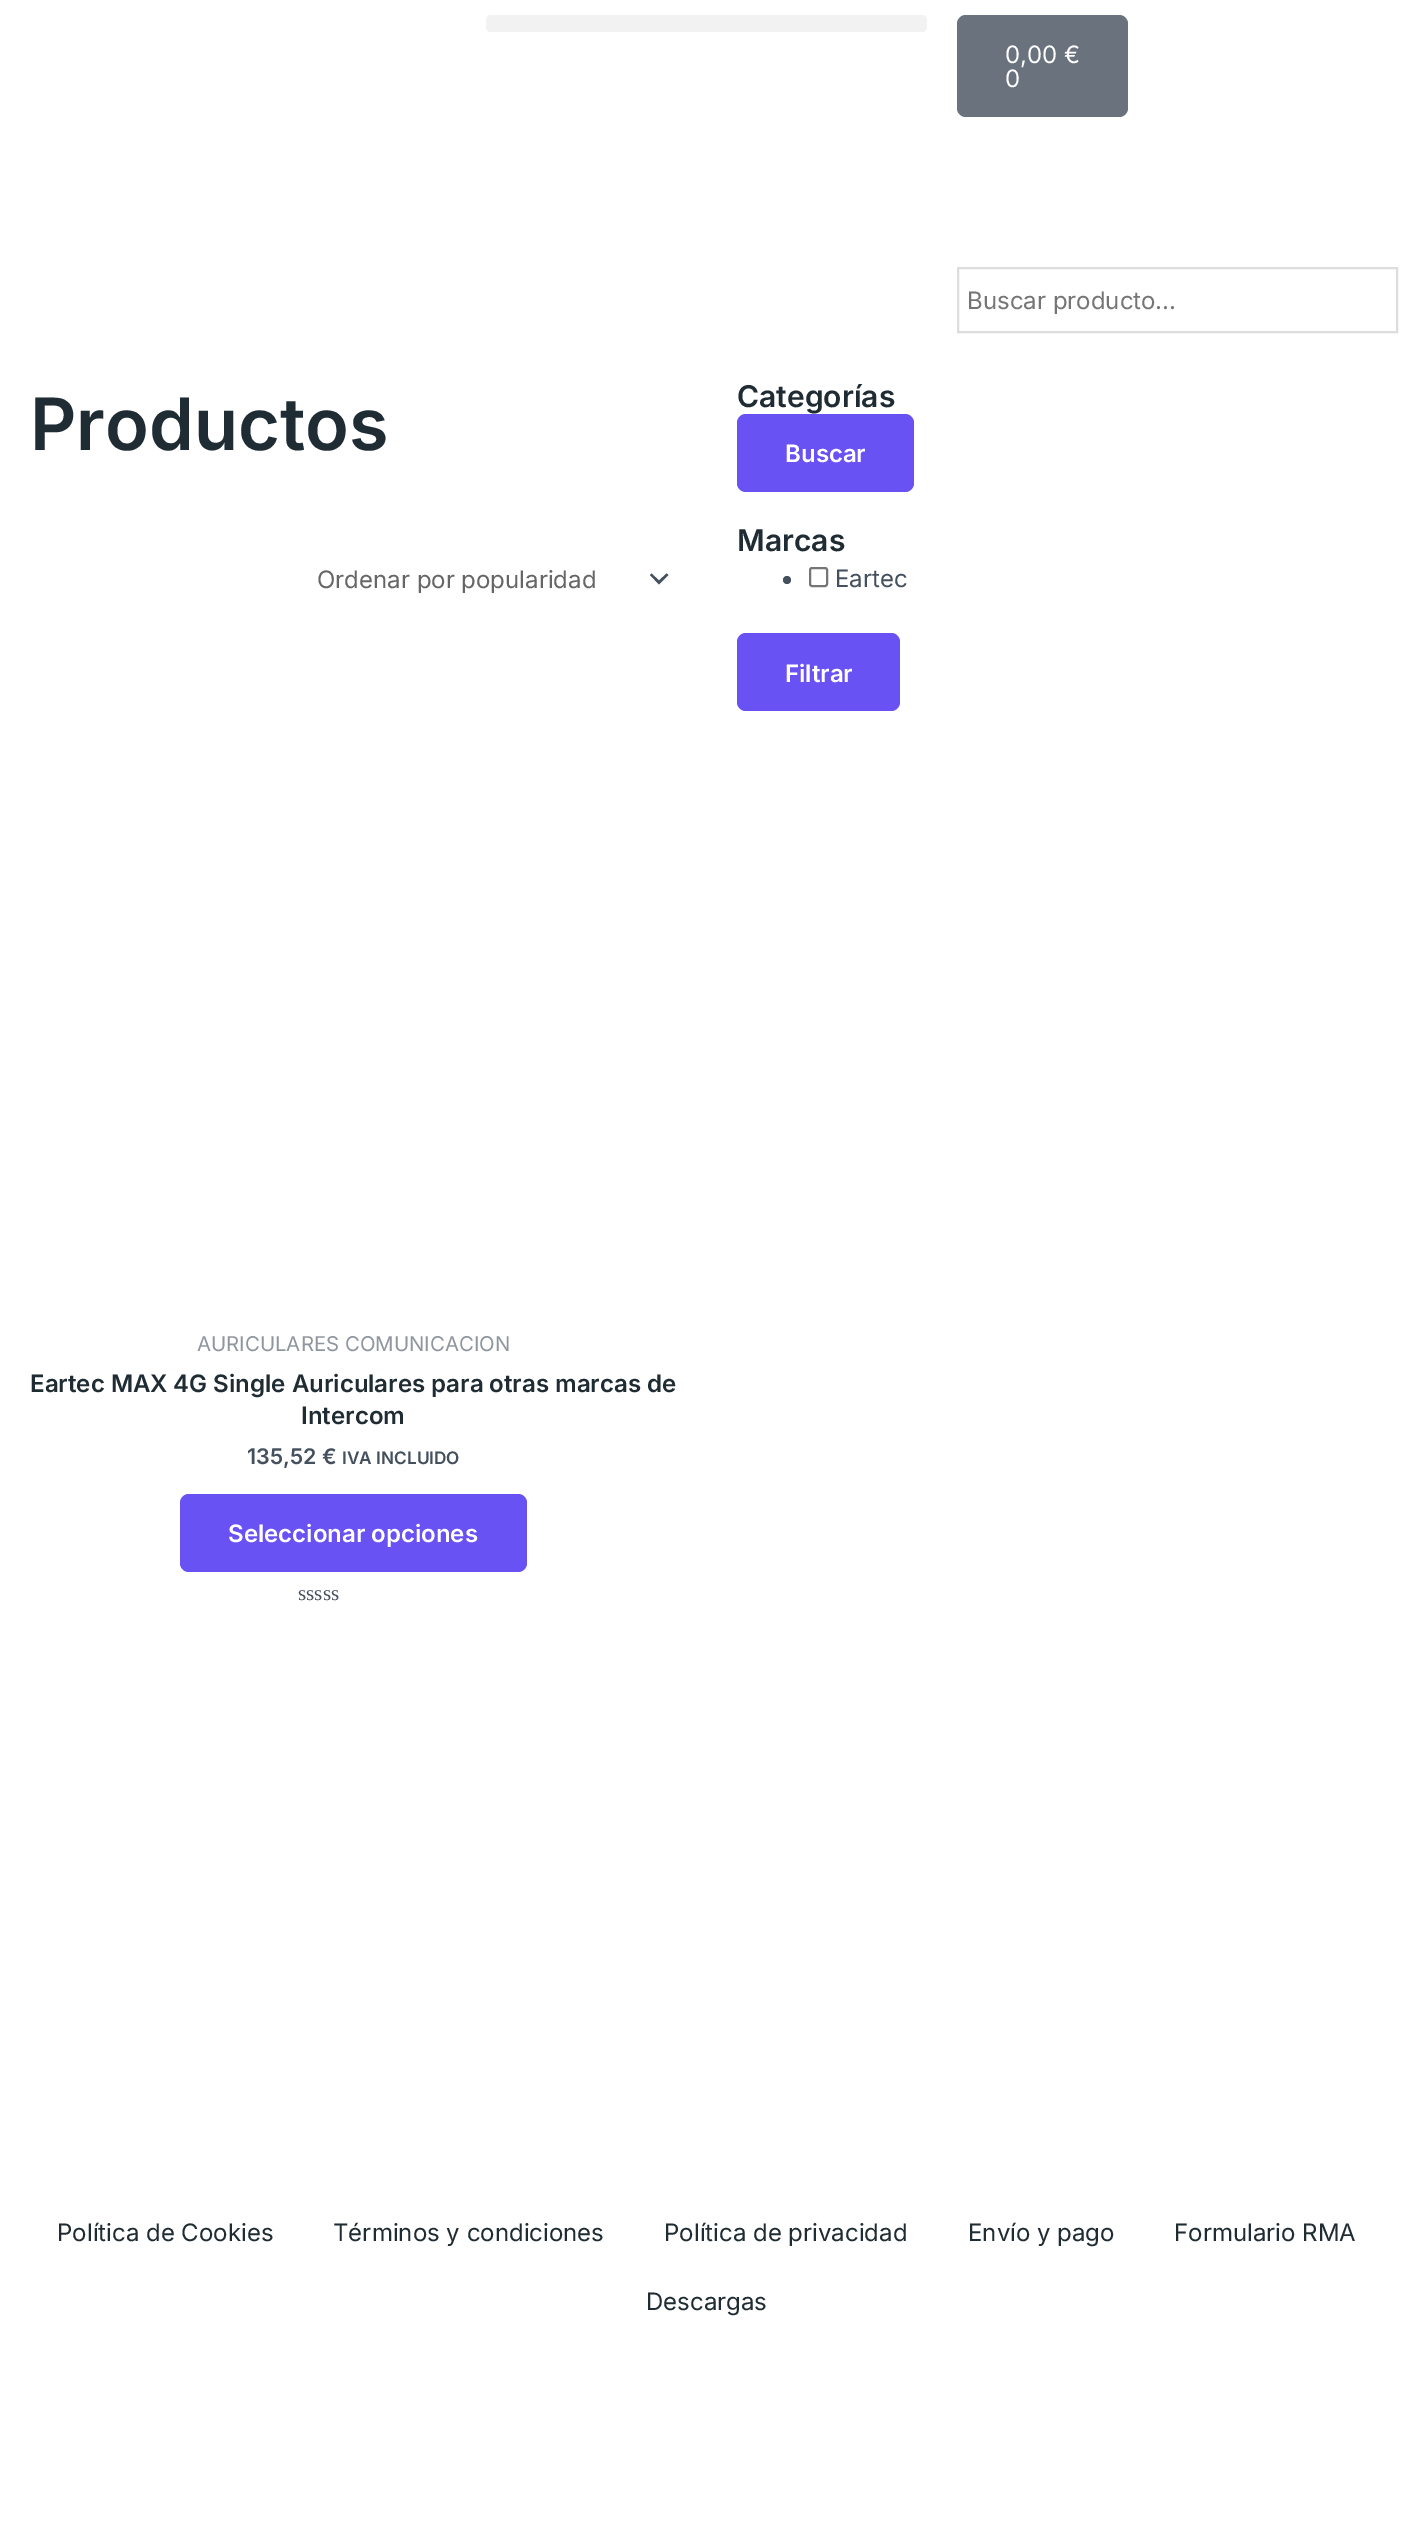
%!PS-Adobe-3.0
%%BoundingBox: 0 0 1413 2537
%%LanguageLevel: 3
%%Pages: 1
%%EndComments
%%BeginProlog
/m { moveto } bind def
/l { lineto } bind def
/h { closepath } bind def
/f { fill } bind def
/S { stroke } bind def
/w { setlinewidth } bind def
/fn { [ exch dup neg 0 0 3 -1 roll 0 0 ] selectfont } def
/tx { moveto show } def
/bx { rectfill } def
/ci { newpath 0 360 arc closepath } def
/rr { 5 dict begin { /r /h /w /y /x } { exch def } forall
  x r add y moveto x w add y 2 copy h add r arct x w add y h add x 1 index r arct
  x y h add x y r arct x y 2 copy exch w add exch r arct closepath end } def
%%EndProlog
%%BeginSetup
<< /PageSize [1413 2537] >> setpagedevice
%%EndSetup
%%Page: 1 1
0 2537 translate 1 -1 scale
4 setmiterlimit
1 setgray
0 0 1413 2537 bx
0.949 setgray
486 15 441 17 5 rr f
0.412 0.447 0.49 setrgbcolor
957 15 171 102 9 rr f
/Inter-Regular 24 fn
1 setgray
(0,00 €) 1005 63 tx
(0) 1005 87 tx
0.867 setgray
2 w
958 268 439 64 rectstroke
0.459 setgray
(Buscar producto...) 967 309 tx
/Inter-SemiBold 72 fn
0.122 0.173 0.2 setrgbcolor
(Productos) 30 450 tx
0.271 0.314 0.373 setrgbcolor
650 575 m 659 584.5 l 668.5 575 l 666.5 573.5 l 659 580.5 l 651.5 573.5 l h f
/Inter-Regular 24 fn
0.4 setgray
(Ordenar por popularidad) 317 588 tx
/Inter-Regular 20.4 fn
0.561 0.588 0.624 setrgbcolor
(AURICULARES COMUNICACION) 197 1351 tx
/Inter-SemiBold 24 fn
0.122 0.173 0.2 setrgbcolor
(Eartec MAX 4G Single Auriculares para otras marcas de) 30 1392 tx
(Intercom) 301 1424 tx
/Inter-SemiBold 21.5 fn
0.271 0.314 0.373 setrgbcolor
(135,52 €) 247 1464 tx
/Inter-SemiBold 17.25 fn
(IVA INCLUIDO) 342 1464 tx
0.408 0.322 0.957 setrgbcolor
180 1494 347 78 9 rr f
/Inter-SemiBold 24 fn
1 setgray
(Seleccionar opciones) 228 1542 tx
/LiberationSerif-Regular 21 fn
0.271 0.314 0.373 setrgbcolor
(sssss) 298 1600 tx
/Inter-SemiBold 30 fn
0.122 0.173 0.2 setrgbcolor
(Categorías) 737 407 tx
0.408 0.322 0.957 setrgbcolor
737 414 177 78 9 rr f
/Inter-SemiBold 24 fn
1 setgray
(Buscar) 785 462 tx
/Inter-SemiBold 30 fn
0.122 0.173 0.2 setrgbcolor
(Marcas) 737 551 tx
0.271 0.314 0.373 setrgbcolor
787 580 4 ci f
0.463 setgray
810 568 17 18 2 rr S
/Inter-Regular 24 fn
0.271 0.314 0.373 setrgbcolor
(Eartec) 835 587 tx
0.408 0.322 0.957 setrgbcolor
737 633 163 78 9 rr f
/Inter-SemiBold 24 fn
1 setgray
(Filtrar) 785 682 tx
/Inter-Regular 24 fn
0.122 0.173 0.2 setrgbcolor
(Política de Cookies) 57 2241 tx
(Términos y condiciones) 333 2241 tx
(Política de privacidad) 664 2241 tx
(Envío y pago) 968 2241 tx
(Formulario RMA) 1174 2241 tx
(Descargas) 646 2310 tx
showpage
%%EOF
